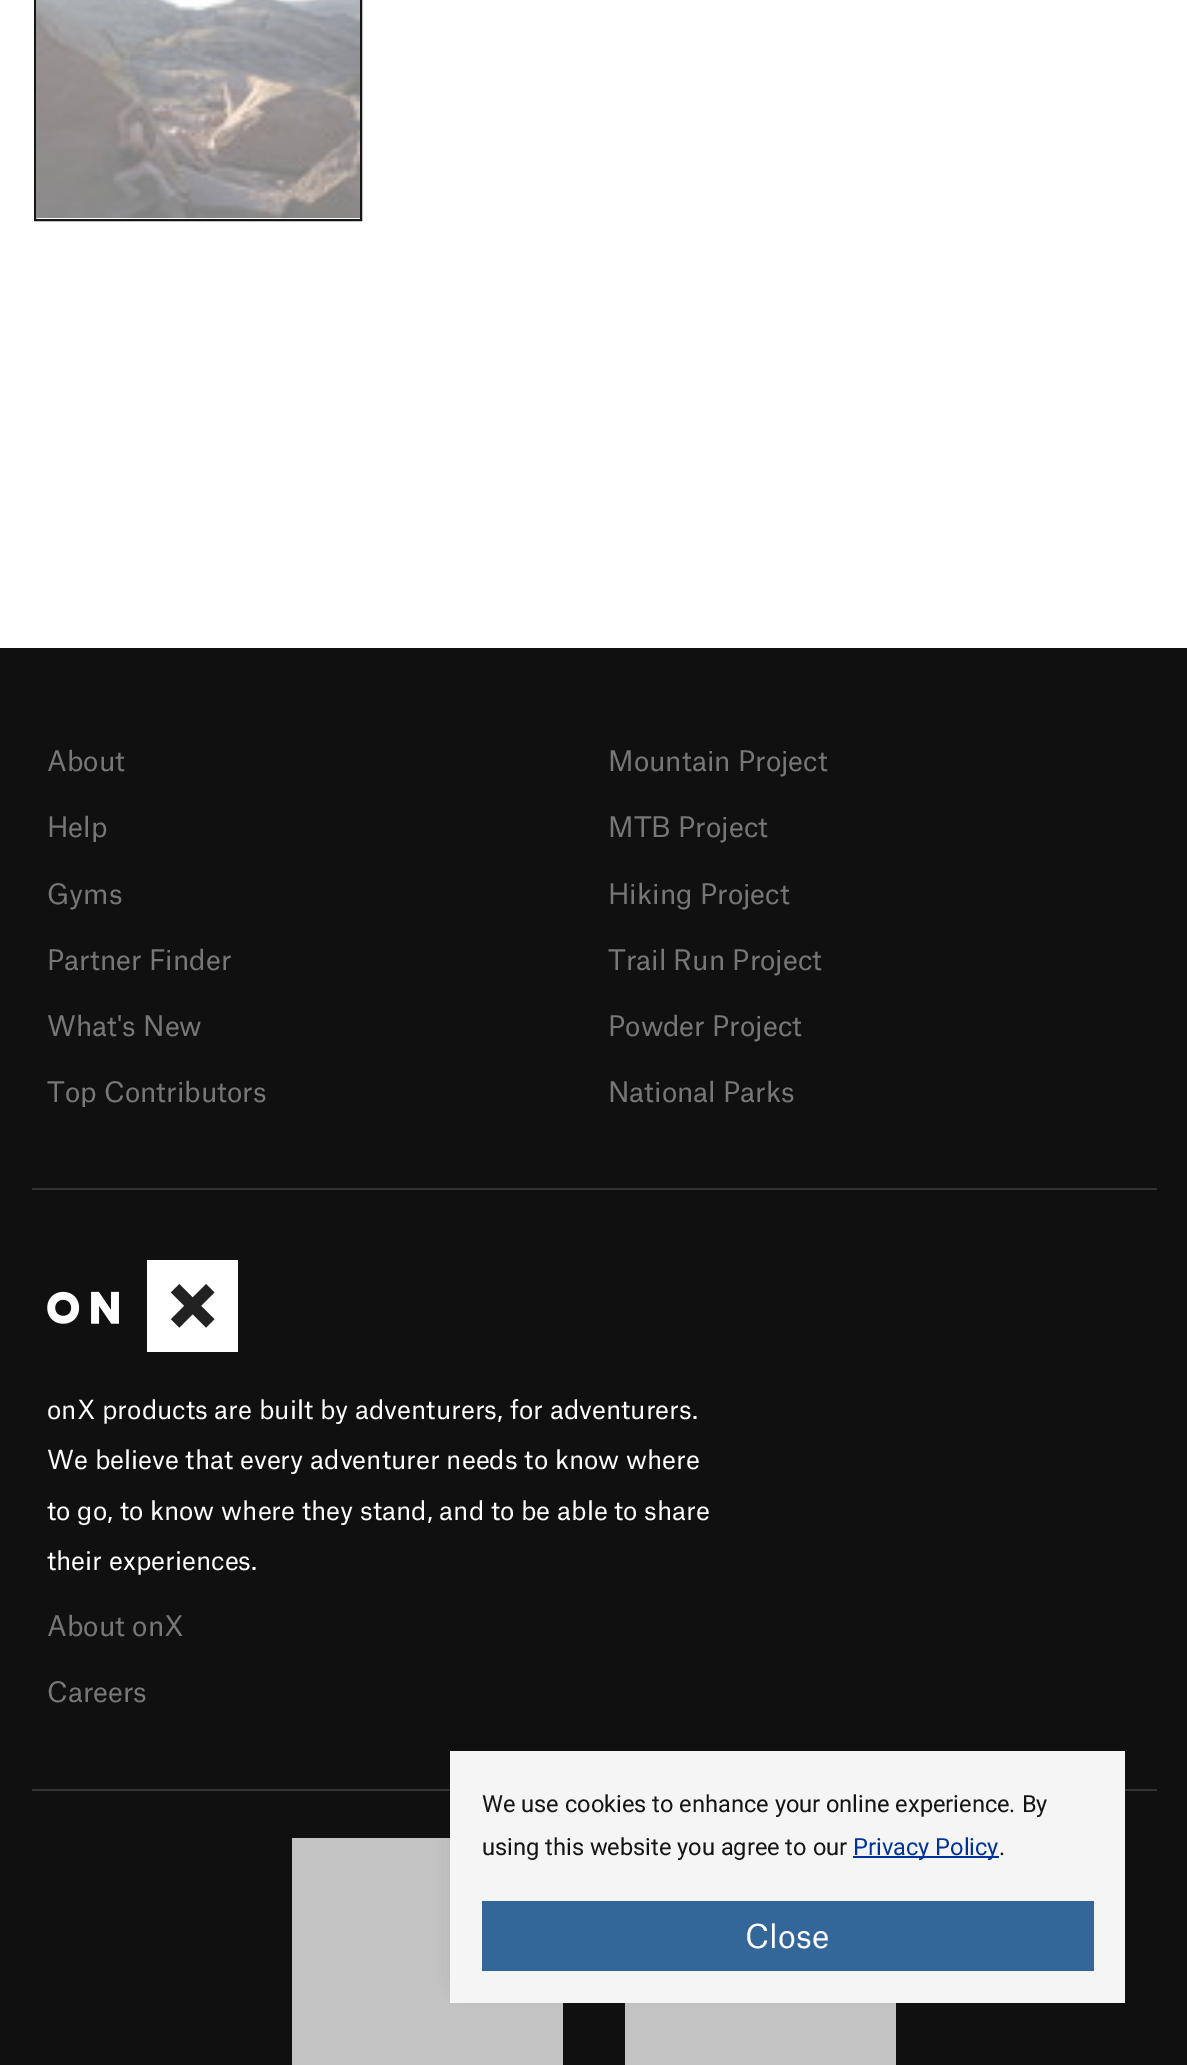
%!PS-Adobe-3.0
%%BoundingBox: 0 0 1187 2065
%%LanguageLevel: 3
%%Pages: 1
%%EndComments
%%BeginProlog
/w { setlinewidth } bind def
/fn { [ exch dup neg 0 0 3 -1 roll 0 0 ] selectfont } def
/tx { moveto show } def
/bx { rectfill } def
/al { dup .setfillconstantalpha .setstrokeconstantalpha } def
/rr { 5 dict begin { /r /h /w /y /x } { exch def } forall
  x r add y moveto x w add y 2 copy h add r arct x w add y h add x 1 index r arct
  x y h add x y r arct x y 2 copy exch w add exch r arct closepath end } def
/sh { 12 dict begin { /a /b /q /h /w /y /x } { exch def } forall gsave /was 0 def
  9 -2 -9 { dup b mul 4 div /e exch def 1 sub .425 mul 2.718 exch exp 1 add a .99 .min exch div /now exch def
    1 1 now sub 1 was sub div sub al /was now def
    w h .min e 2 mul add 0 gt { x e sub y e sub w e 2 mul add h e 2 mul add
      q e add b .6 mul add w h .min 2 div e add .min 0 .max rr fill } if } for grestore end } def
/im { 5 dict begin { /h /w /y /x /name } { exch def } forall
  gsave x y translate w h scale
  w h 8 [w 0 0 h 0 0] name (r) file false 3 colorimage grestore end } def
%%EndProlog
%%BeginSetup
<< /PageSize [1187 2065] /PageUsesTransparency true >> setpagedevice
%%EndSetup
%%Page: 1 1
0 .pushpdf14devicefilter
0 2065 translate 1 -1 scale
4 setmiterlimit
1 setgray
0 0 1187 2065 bx
0.082 setgray
2 w
35 -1 326 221 rectstroke
(image0.raw) 36 0 324 218 im
0.063 setgray
0 648 1187 1417 bx
0.2 setgray
32 1188 1125 2 bx
/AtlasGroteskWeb-Regular 27 fn
0.467 setgray
(About) 47 771 tx
(Mountain Project) 608 771 tx
(Help) 47 837 tx
(MTB Project) 608 837 tx
(Gyms) 47 904 tx
(Hiking Project) 608 904 tx
(Partner Finder) 47 970 tx
(Trail Run Project) 608 970 tx
(What's New) 47 1036 tx
(Powder Project) 608 1036 tx
(Top Contributors) 47 1102 tx
(National Parks) 608 1102 tx
0.2 setgray
32 1789 1125 2 bx
(image1.raw) 47 1260 191 92 im
/AtlasGroteskWeb-Regular 25.2 fn
1 setgray
(onX products are built by adventurers, for adventurers.) 47 1419 tx
(We believe that every adventurer needs to know where) 47 1469 tx
(to go, to know where they stand, and to be able to share) 47 1520 tx
(their experiences.) 47 1570 tx
/AtlasGroteskWeb-Regular 27 fn
0.467 setgray
(About onX) 47 1636 tx
(Careers) 47 1702 tx
0.765 setgray
292 1838 271 227 bx
625 2003 271 62 bx
0 setgray
461 1751 653 229 0 11 0.25 sh
0.961 setgray
450 1751 675 252 bx
/Roboto-Regular 23.6 fn
0.082 setgray
(We use cookies to enhance your online experience. By) 482 1812 tx
(using this website you agree to our) 482 1855 tx
0 0.2 0.6 setrgbcolor
853 1856 146 2 bx
(Privacy Policy) 853 1855 tx
0.082 setgray
(.) 999 1855 tx
0.2 0.404 0.6 setrgbcolor
482 1901 612 70 bx
/AtlasGroteskWeb-Regular 31.5 fn
1 setgray
(Close) 745 1948 tx
.poppdf14devicefilter showpage
%%EOF
